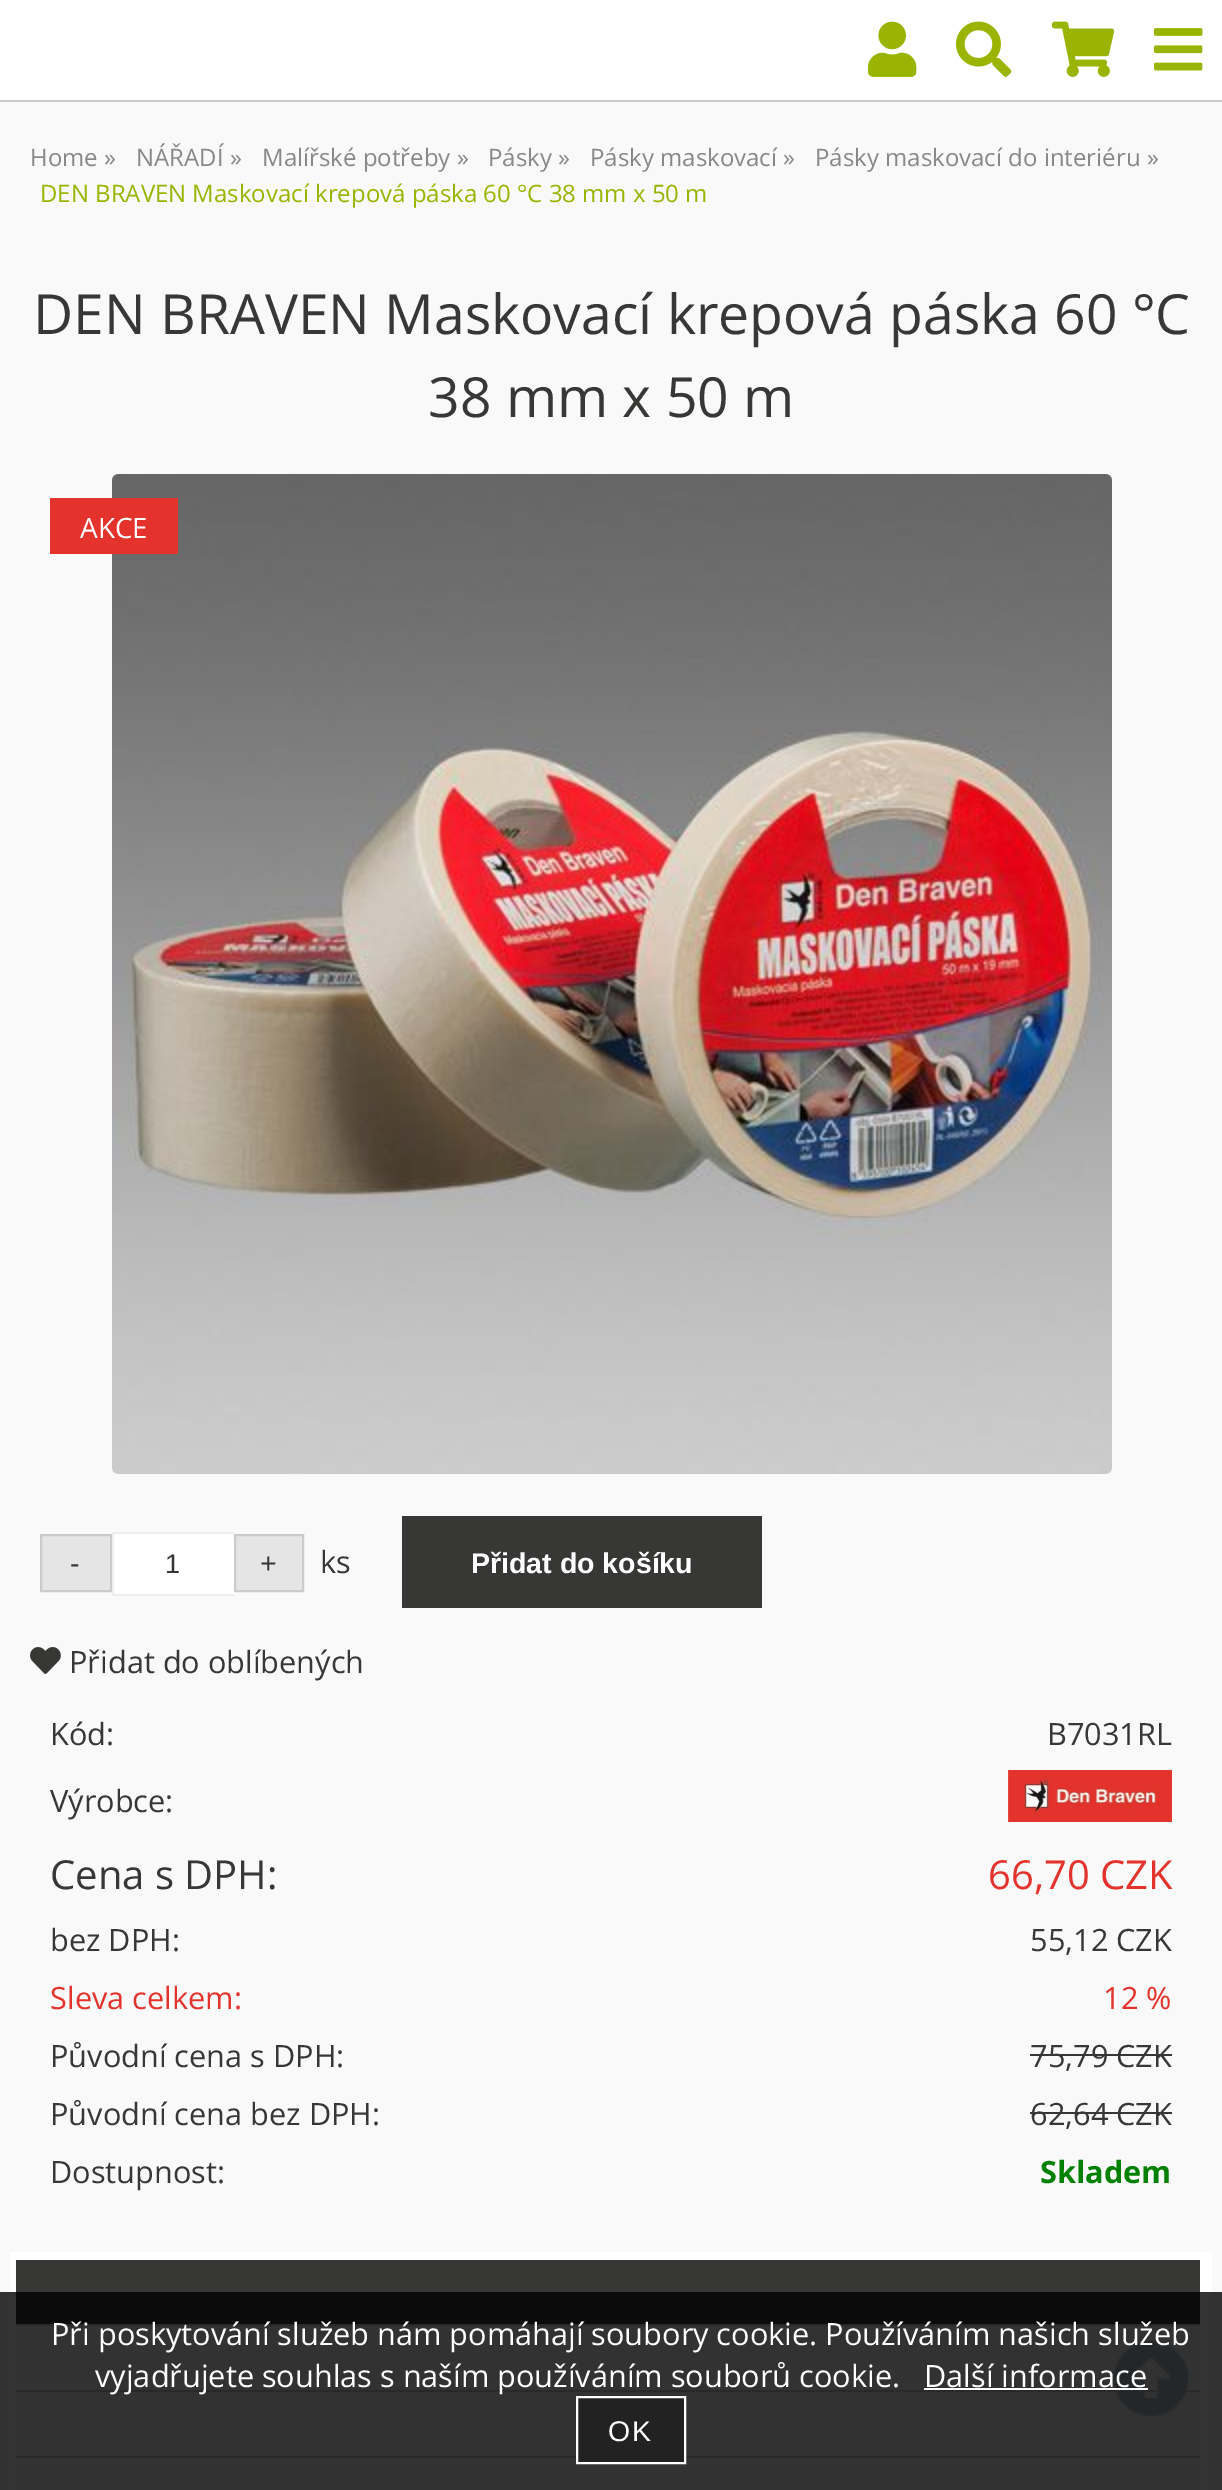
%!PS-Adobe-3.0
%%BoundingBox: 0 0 1222 2490
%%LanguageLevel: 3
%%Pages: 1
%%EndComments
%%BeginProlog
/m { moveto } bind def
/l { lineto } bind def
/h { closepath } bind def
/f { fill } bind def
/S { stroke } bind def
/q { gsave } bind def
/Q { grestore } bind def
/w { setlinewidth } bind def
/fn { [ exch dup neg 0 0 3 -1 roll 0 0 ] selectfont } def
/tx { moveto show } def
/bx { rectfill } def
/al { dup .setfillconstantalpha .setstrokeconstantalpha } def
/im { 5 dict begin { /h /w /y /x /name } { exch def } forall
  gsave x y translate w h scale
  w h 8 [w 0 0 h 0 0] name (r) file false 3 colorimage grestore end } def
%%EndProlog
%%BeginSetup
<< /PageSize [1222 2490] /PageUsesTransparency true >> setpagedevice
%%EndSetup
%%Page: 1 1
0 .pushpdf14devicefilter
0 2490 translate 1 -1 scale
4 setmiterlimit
0.976 setgray
0 0 1222 2490 bx
1 setgray
0 0 1222 100 bx
0.796 setgray
0 100 1222 2 bx
(image0.raw) 868 21 49 56 im
(image1.raw) 956 21 56 56 im
(image2.raw) 1052 21 63 56 im
(image3.raw) 1154 28 49 43 im
/OpenSans-Regular 24 fn
0.533 setgray
(Home ») 30 166 tx
(NÁŘADÍ ») 136 166 tx
(Malířské potřeby ») 262 166 tx
(Pásky ») 488 166 tx
(Pásky maskovací ») 590 166 tx
(Pásky maskovací do interiéru ») 815 166 tx
0.6 0.706 0.008 setrgbcolor
(DEN BRAVEN Maskovací krepová páska 60 °C 38 mm x 50 m) 40 202 tx
/OpenSans-Regular 55.3 fn
0.216 0.216 0.212 setrgbcolor
(DEN BRAVEN Maskovací krepová páska 60 °C) 33 334 tx
(38 mm x 50 m) 428 417 tx
(image4.raw) 112 474 1000 1000 im
0.894 0.2 0.176 setrgbcolor
50 498 128 56 bx
/OpenSans-Regular 28 fn
1 setgray
(AKCE) 80 538 tx
0.898 setgray
41 1535 m 111 1535 l 111 1591 l 41 1591 l h q f Q
0.796 setgray
2 w
S
/LiberationSans-Regular 28.5 fn
0.216 0.216 0.212 setrgbcolor
70 1573 m 2 0 (-) ashow
1 setgray
114 1534 120 60 bx
0.933 setgray
112 1532 122 2 bx
112 1594 122 2 bx
112 1532 2 64 bx
/LiberationSans-Regular 27 fn
0.216 0.216 0.212 setrgbcolor
165 1573 m 2 0 (1) ashow
0.898 setgray
235 1535 m 303 1535 l 303 1591 l 235 1591 l h q f Q
0.796 setgray
S
/LiberationSans-Regular 28.5 fn
0.216 0.216 0.212 setrgbcolor
260 1573 m 2 0 (+) ashow
/OpenSans-Regular 30.7 fn
(ks) 320 1573 tx
402 1516 360 92 bx
/LiberationSans-Bold 28.5 fn
1 setgray
(Přidat do košíku) 471 1573 tx
(image5.raw) 30 1647 31 27 im
/OpenSans-Regular 30.7 fn
0.216 0.216 0.212 setrgbcolor
(Přidat do oblíbených) 69 1673 tx
(Kód:) 50 1745 tx
(B7031RL) 1047 1745 tx
(Výrobce:) 50 1812 tx
(image6.raw) 1008 1770 164 52 im
/OpenSans-Regular 40 fn
(Cena s DPH:) 50 1889 tx
0.894 0.2 0.176 setrgbcolor
(66,70 CZK) 988 1889 tx
/OpenSans-Regular 30.7 fn
0.216 0.216 0.212 setrgbcolor
(bez DPH:) 50 1951 tx
(55,12 CZK) 1030 1951 tx
0.894 0.2 0.176 setrgbcolor
(Sleva celkem:) 50 2009 tx
(12 %) 1103 2009 tx
0.216 0.216 0.212 setrgbcolor
(Původní cena s DPH:) 50 2067 tx
(75,79 CZK) 1030 2067 tx
1030 2054 142 2 bx
(Původní cena bez DPH:) 50 2125 tx
(62,64 CZK) 1030 2125 tx
1030 2112 142 2 bx
(Dostupnost:) 50 2183 tx
/OpenSans-Bold 30.7 fn
0 0.502 0 setrgbcolor
(Skladem) 1040 2183 tx
1 setgray
10 2252 1202 238 bx
0.216 0.216 0.212 setrgbcolor
16 2260 1184 64 bx
0.796 setgray
16 2324 1184 2 bx
0.976 setgray
16 2326 1184 64 bx
0.796 setgray
16 2390 1184 2 bx
0.976 setgray
16 2392 1184 64 bx
0.796 setgray
16 2456 1184 2 bx
0.976 setgray
16 2458 1184 32 bx
(image7.raw) 1112 2340 79 77 im
0.8 al
0 setgray
0 2292 1222 198 bx
/OpenSans-Regular 30.7 fn
1 al
1 setgray
(Při poskytování služeb nám pomáhají soubory cookie. Používáním našich služeb) 51 2345 tx
(vyjadřujete souhlas s naším používáním souborů cookie.) 95 2387 tx
(Další informace) 924 2387 tx
924 2388 224 2 bx
0.133 setgray
577 2397 m 685 2397 l 685 2463 l 577 2463 l h q f Q
1 setgray
S
/LiberationSans-Regular 28.5 fn
608 2441 m 2 0 (OK) ashow
.poppdf14devicefilter showpage
%%EOF
